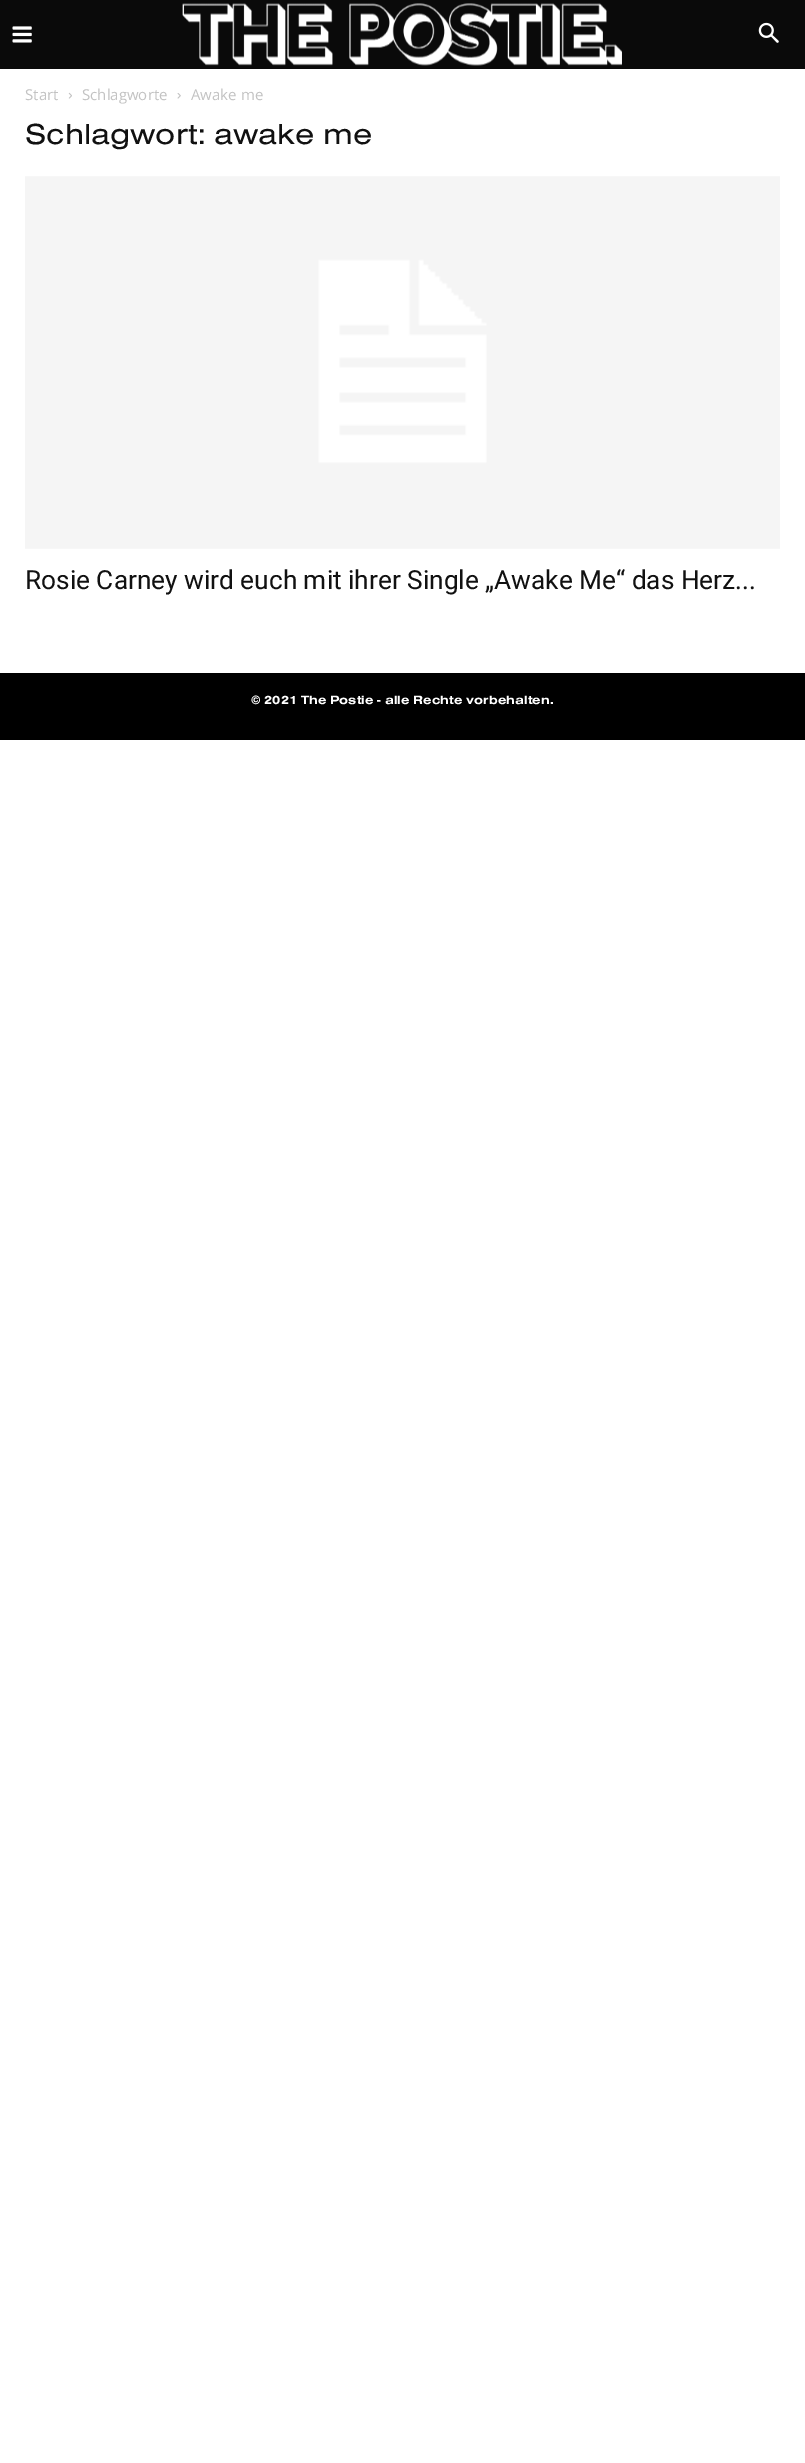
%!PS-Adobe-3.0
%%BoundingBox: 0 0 805 2463
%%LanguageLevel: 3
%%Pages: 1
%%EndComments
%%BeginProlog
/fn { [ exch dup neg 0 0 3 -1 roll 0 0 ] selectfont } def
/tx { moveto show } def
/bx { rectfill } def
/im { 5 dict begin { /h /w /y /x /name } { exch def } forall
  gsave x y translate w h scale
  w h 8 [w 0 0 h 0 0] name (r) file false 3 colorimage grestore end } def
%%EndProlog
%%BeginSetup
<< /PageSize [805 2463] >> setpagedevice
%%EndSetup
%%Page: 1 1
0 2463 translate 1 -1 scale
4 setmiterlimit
1 setgray
0 0 805 2463 bx
0.039 setgray
0 0 805 69 bx
(image0.raw) 12 26 20 17 im
(image1.raw) 182 3 440 63 im
(image2.raw) 758 22 21 21 im
/OpenSans-Regular 15 fn
0.765 setgray
(Start) 25 100 tx
(image3.raw) 68 92 4 7 im
(Schlagworte) 82 100 tx
(image4.raw) 177 93 4 6 im
(Awake me) 191 100 tx
/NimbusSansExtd-Regular 30 fn
0.067 setgray
(Schlagwort: awake me) 25 144 tx
(image5.raw) 25 176 755 373 im
/Roboto-Regular 26.25 fn
(Rosie Carney wird euch mit ihrer Single „Awake Me“ das Herz...) 25 589 tx
0 setgray
0 673 805 67 bx
/NimbusSansExtd-Bold 12.5 fn
1 setgray
(© 2021 The Postie - alle Rechte vorbehalten.) 251 704 tx
showpage
%%EOF
